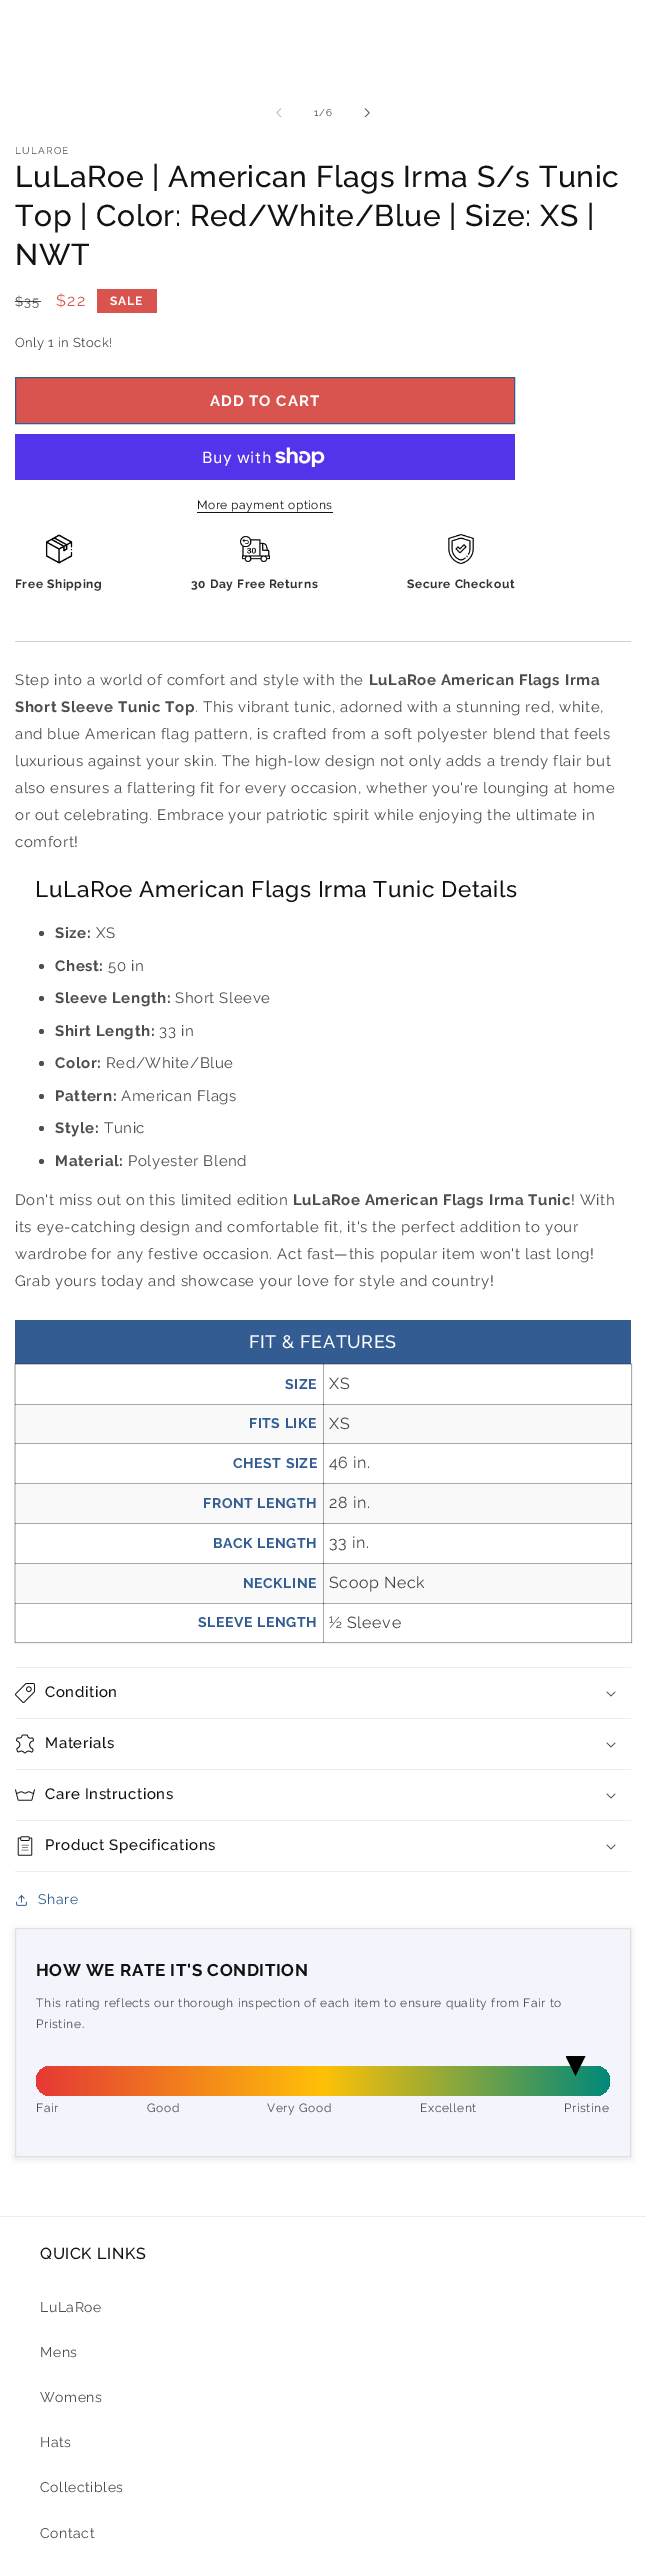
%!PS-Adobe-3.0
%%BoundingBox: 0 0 646 2555
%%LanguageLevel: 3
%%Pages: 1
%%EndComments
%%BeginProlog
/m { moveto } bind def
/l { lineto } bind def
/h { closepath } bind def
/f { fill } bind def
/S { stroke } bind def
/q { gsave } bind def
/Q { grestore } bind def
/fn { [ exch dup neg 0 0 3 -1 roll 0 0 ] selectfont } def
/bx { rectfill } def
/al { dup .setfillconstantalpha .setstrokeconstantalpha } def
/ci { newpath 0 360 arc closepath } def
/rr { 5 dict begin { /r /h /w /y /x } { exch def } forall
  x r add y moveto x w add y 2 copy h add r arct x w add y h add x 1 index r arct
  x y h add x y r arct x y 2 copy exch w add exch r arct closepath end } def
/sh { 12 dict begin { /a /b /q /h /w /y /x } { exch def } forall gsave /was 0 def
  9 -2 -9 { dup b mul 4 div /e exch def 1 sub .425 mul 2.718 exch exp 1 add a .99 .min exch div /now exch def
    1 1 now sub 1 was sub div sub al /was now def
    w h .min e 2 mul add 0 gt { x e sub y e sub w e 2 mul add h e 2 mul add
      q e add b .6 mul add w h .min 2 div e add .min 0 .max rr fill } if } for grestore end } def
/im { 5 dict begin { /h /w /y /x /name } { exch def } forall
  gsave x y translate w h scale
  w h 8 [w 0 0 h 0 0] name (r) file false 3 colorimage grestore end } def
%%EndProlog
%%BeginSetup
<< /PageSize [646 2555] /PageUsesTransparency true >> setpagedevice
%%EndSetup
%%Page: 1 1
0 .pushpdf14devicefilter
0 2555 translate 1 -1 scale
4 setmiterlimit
1 setgray
0 0 646 2555 bx
(image0.raw) 276 108 6 10 im
/Raleway-Regular 10 fn
0.302 setgray
314 116 m 1 0 (1/6) ashow
(image1.raw) 364 108 6 10 im
15 154 m 1.25 0 (LULAROE) ashow
/Raleway-Medium 30 fn
0.071 setgray
15 187 m 0.6 0 (LuLaRoe | American Flags Irma S/s Tunic) ashow
15 226 m 0.6 0 (Top | Color: Red/White/Blue | Size: XS |) ashow
15 265 m 0.6 0 (NWT) ashow
/Raleway-Regular 13 fn
0.302 setgray
15 306 m 1.25 0 ($35) ashow
0.75 al
0.071 setgray
15 301 26 1 bx
/Raleway-Regular 16 fn
1 al
0.851 0.325 0.31 setrgbcolor
56 306 m 1.25 0 ($22) ashow
97 289 60 24 bx
/Raleway-Bold 12 fn
1 setgray
110 305 m 1 0 (SALE) ashow
/Raleway-Regular 13 fn
0.302 setgray
15 347 m 0.4 0 (Only 1 in Stock!) ashow
0.851 0.325 0.31 setrgbcolor
16 378 498 45 bx
0.2 0.365 0.573 setrgbcolor
15.5 377.5 499 46 rectstroke
/Raleway-Bold 15 fn
1 setgray
210 406 m 1 0 (ADD TO CART) ashow
0.329 0.2 0.922 setrgbcolor
15 434 500 46 bx
/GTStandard-Regular 16 fn
1 setgray
202 463 m 0.6 0 (Buy with) ashow
(image2.raw) 275 447 50 20 im
/Raleway-Regular 12 fn
0.071 setgray
197 509 m 0.5 0 (More payment options) ashow
197 512 136 1 bx
(image3.raw) 45 534 28 30 im
/Raleway-Bold 12 fn
0.2 setgray
15 588 m 0.6 0 (Free Shipping) ashow
(image4.raw) 240 536 30 26 im
191 588 m 0.6 0 (30 Day Free Returns) ashow
(image5.raw) 448 534 26 30 im
407 588 m 0.6 0 (Secure Checkout) ashow
0.816 setgray
15 641 616 1 bx
/Raleway-Regular 15 fn
0.302 setgray
15 685 m 0.6 0 (Step into a world of comfort and style with the) ashow
/Raleway-Bold 15 fn
369 685 m 0.6 0 (LuLaRoe American Flags Irma) ashow
15 712 m 0.6 0 (Short Sleeve Tunic Top) ashow
/Raleway-Regular 15 fn
195 712 m 0.6 0 (. This vibrant tunic, adorned with a stunning red, white,) ashow
15 739 m 0.6 0 (and blue American flag pattern, is crafted from a soft polyester blend that feels) ashow
15 766 m 0.6 0 (luxurious against your skin. The high-low design not only adds a trendy flair but) ashow
15 793 m 0.6 0 (also ensures a flattering fit for every occasion, whether you're lounging at home) ashow
15 820 m 0.6 0 (or out celebrating. Embrace your patriotic spirit while enjoying the ultimate in) ashow
15 847 m 0.6 0 (comfort!) ashow
/Raleway-Medium 22.5 fn
0.071 setgray
35 897 m 0.6 0 (LuLaRoe American Flags Irma Tunic Details) ashow
0.302 setgray
41.5 933.5 2.5 ci f
/Raleway-Bold 15 fn
55 938 m 0.6 0 (Size:) ashow
/Raleway-Regular 15 fn
96 938 m 0.6 0 (XS) ashow
41.5 966.5 2.5 ci f
/Raleway-Bold 15 fn
55 971 m 0.6 0 (Chest:) ashow
/Raleway-Regular 15 fn
108 971 m 0.6 0 (50 in) ashow
41.5 998.5 2.5 ci f
/Raleway-Bold 15 fn
55 1003 m 0.6 0 (Sleeve Length:) ashow
/Raleway-Regular 15 fn
175 1003 m 0.6 0 (Short Sleeve) ashow
41.5 1031.5 2.5 ci f
/Raleway-Bold 15 fn
55 1036 m 0.6 0 (Shirt Length:) ashow
/Raleway-Regular 15 fn
159 1036 m 0.6 0 (33 in) ashow
41.5 1063.5 2.5 ci f
/Raleway-Bold 15 fn
55 1068 m 0.6 0 (Color:) ashow
/Raleway-Regular 15 fn
106 1068 m 0.6 0 (Red/White/Blue) ashow
41.5 1096.5 2.5 ci f
/Raleway-Bold 15 fn
55 1101 m 0.6 0 (Pattern:) ashow
/Raleway-Regular 15 fn
121 1101 m 0.6 0 (American Flags) ashow
41.5 1128.5 2.5 ci f
/Raleway-Bold 15 fn
55 1133 m 0.6 0 (Style:) ashow
/Raleway-Regular 15 fn
104 1133 m 0.6 0 (Tunic) ashow
41.5 1161.5 2.5 ci f
/Raleway-Bold 15 fn
55 1166 m 0.6 0 (Material:) ashow
/Raleway-Regular 15 fn
128 1166 m 0.6 0 (Polyester Blend) ashow
15 1205 m 0.6 0 (Don't miss out on this limited edition) ashow
/Raleway-Bold 15 fn
293 1205 m 0.6 0 (LuLaRoe American Flags Irma Tunic) ashow
/Raleway-Regular 15 fn
571 1205 m 0.6 0 (! With) ashow
15 1232 m 0.6 0 (its eye-catching design and comfortable fit, it's the perfect addition to your) ashow
15 1259 m 0.6 0 (wardrobe for any festive occasion. Act fast—this popular item won't last long!) ashow
15 1286 m 0.6 0 (Grab yours today and showcase your love for style and country!) ashow
0.2 0.365 0.573 setrgbcolor
15 1320 616 44 bx
/Raleway-Medium 18 fn
1 setgray
249 1348 m 0.6 0 (FIT & FEATURES) ashow
0.2 al
0.071 setgray
14.5 1363.5 617 279 rectstroke
323 1364 309 1 bx
1 al
0.976 setgray
15 1404 616 40 bx
0.2 al
0.071 setgray
323 1404 309 1 bx
323 1443 309 1 bx
323 1483 309 1 bx
1 al
0.976 setgray
15 1484 616 40 bx
0.2 al
0.071 setgray
323 1523 309 1 bx
1 al
0.976 setgray
15 1563 616 40 bx
0.2 al
0.071 setgray
323 1563 309 1 bx
323 1603 309 1 bx
631 1603 1 40 bx
631 1563 1 41 bx
631 1523 1 41 bx
631 1483 1 41 bx
631 1443 1 41 bx
631 1404 1 40 bx
631 1364 1 41 bx
323 1642 309 1 bx
323 1603 1 40 bx
15 1603 309 1 bx
323 1603 1 40 bx
323 1603 309 1 bx
323 1563 1 41 bx
15 1563 309 1 bx
323 1563 1 41 bx
323 1563 309 1 bx
323 1523 1 41 bx
15 1523 309 1 bx
323 1523 1 41 bx
323 1523 309 1 bx
323 1483 1 41 bx
15 1483 309 1 bx
323 1483 1 41 bx
323 1483 309 1 bx
323 1443 1 41 bx
15 1443 309 1 bx
323 1443 1 41 bx
323 1443 309 1 bx
323 1404 1 40 bx
15 1404 309 1 bx
323 1404 1 40 bx
323 1404 309 1 bx
323 1364 1 41 bx
15 1364 309 1 bx
323 1364 1 41 bx
15 1642 309 1 bx
15 1603 1 40 bx
15 1603 309 1 bx
15 1563 1 41 bx
15 1563 309 1 bx
15 1523 1 41 bx
15 1523 309 1 bx
15 1483 1 41 bx
15 1483 309 1 bx
15 1443 1 41 bx
15 1443 309 1 bx
15 1404 1 40 bx
15 1404 309 1 bx
15 1364 1 41 bx
/Raleway-Bold 14 fn
1 al
0.2 0.365 0.573 setrgbcolor
285 1389 m 0.6 0 (SIZE) ashow
/Raleway-Regular 16 fn
0.267 setgray
329 1389 m 0.6 0 (XS) ashow
/Raleway-Bold 14 fn
0.2 0.365 0.573 setrgbcolor
249 1428 m 0.6 0 (FITS LIKE) ashow
/Raleway-Regular 16 fn
0.267 setgray
329 1429 m 0.6 0 (XS) ashow
/Raleway-Bold 14 fn
0.2 0.365 0.573 setrgbcolor
233 1468 m 0.6 0 (CHEST SIZE) ashow
/Raleway-Regular 16 fn
0.267 setgray
329 1468 m 0.6 0 (46 in.) ashow
/Raleway-Bold 14 fn
0.2 0.365 0.573 setrgbcolor
203 1508 m 0.6 0 (FRONT LENGTH) ashow
/Raleway-Regular 16 fn
0.267 setgray
329 1508 m 0.6 0 (28 in.) ashow
/Raleway-Bold 14 fn
0.2 0.365 0.573 setrgbcolor
213 1548 m 0.6 0 (BACK LENGTH) ashow
/Raleway-Regular 16 fn
0.267 setgray
329 1548 m 0.6 0 (33 in.) ashow
/Raleway-Bold 14 fn
0.2 0.365 0.573 setrgbcolor
243 1588 m 0.6 0 (NECKLINE) ashow
/Raleway-Regular 16 fn
0.267 setgray
329 1588 m 0.6 0 (Scoop Neck) ashow
/Raleway-Bold 14 fn
0.2 0.365 0.573 setrgbcolor
198 1627 m 0.6 0 (SLEEVE LENGTH) ashow
/Raleway-Regular 16 fn
0.267 setgray
329 1628 m 0.6 0 (½ Sleeve) ashow
0.925 setgray
15 1667 616 1 bx
15 1718 616 1 bx
(image6.raw) 15 1683 20 20 im
/Raleway-Medium 15 fn
0.071 setgray
45 1697 m 0.6 0 (Condition) ashow
(image7.raw) 606 1691 10 6 im
0.925 setgray
15 1769 616 1 bx
(image8.raw) 16 1734 18 20 im
0.071 setgray
45 1748 m 0.6 0 (Materials) ashow
(image7.raw) 606 1742 10 6 im
0.925 setgray
15 1820 616 1 bx
(image9.raw) 15 1789 20 12 im
0.071 setgray
45 1799 m 0.6 0 (Care Instructions) ashow
(image7.raw) 606 1793 10 6 im
0.925 setgray
15 1871 616 1 bx
(image10.raw) 17 1836 16 20 im
0.071 setgray
45 1850 m 0.6 0 (Product Specifications) ashow
(image7.raw) 606 1844 10 6 im
(image11.raw) 16 1895 11 11 im
/Raleway-Regular 14 fn
0.2 0.365 0.573 setrgbcolor
38 1904 m 0.6 0 (Share) ashow
0 setgray
15 1930 616 229 0 4 0.1 sh
0.957 0.957 0.988 setrgbcolor
15.5 1928.5 m 630.5 1928.5 l 630.5 2156.5 l 15.5 2156.5 l h q f Q
0.878 setgray
S
/Raleway-Bold 17 fn
0.071 setgray
36 1976 m 0.6 0 (HOW WE RATE IT'S CONDITION) ashow
/Raleway-Regular 12 fn
0.302 setgray
36 2007 m 0.6 0 (This rating reflects our thorough inspection of each item to ensure quality from Fair to) ashow
36 2028 m 0.6 0 (Pristine.) ashow
q 36 2066 574 30 15 rr clip newpath
<< /ShadingType 2 /ColorSpace /DeviceRGB /Coords [36 2081 610 2081] /Extend [true true] /Function << /FunctionType 3 /Domain [0 1] /Functions [<< /FunctionType 2 /Domain [0 1] /C0 [0.898 0.224 0.208] /C1 [1 0.757 0.027] /N 1 >> << /FunctionType 2 /Domain [0 1] /C0 [1 0.757 0.027] /C1 [0 0.537 0.482] /N 1 >>] /Bounds [0.5] /Encode [0 1 0 1] >> >> shfill Q
0 setgray
566 2056 m 566 2057 l 575.5 2076 l 585.5 2056 l h f
0.302 setgray
36 2112 m 0.6 0 (Fair) ashow
147 2112 m 0.6 0 (Good) ashow
267 2112 m 0.6 0 (Very Good) ashow
420 2112 m 0.6 0 (Excellent) ashow
564 2112 m 0.6 0 (Pristine) ashow
0.925 setgray
0 2216 646 1 bx
/Raleway-Medium 16 fn
0.071 setgray
40 2259 m 0.6 0 (QUICK LINKS) ashow
/Raleway-Regular 14 fn
0.302 setgray
40 2312 m 0.6 0 (LuLaRoe) ashow
40 2357 m 0.6 0 (Mens) ashow
40 2402 m 0.6 0 (Womens) ashow
40 2447 m 0.6 0 (Hats) ashow
40 2492 m 0.6 0 (Collectibles) ashow
40 2538 m 0.6 0 (Contact) ashow
.poppdf14devicefilter showpage
%%EOF
